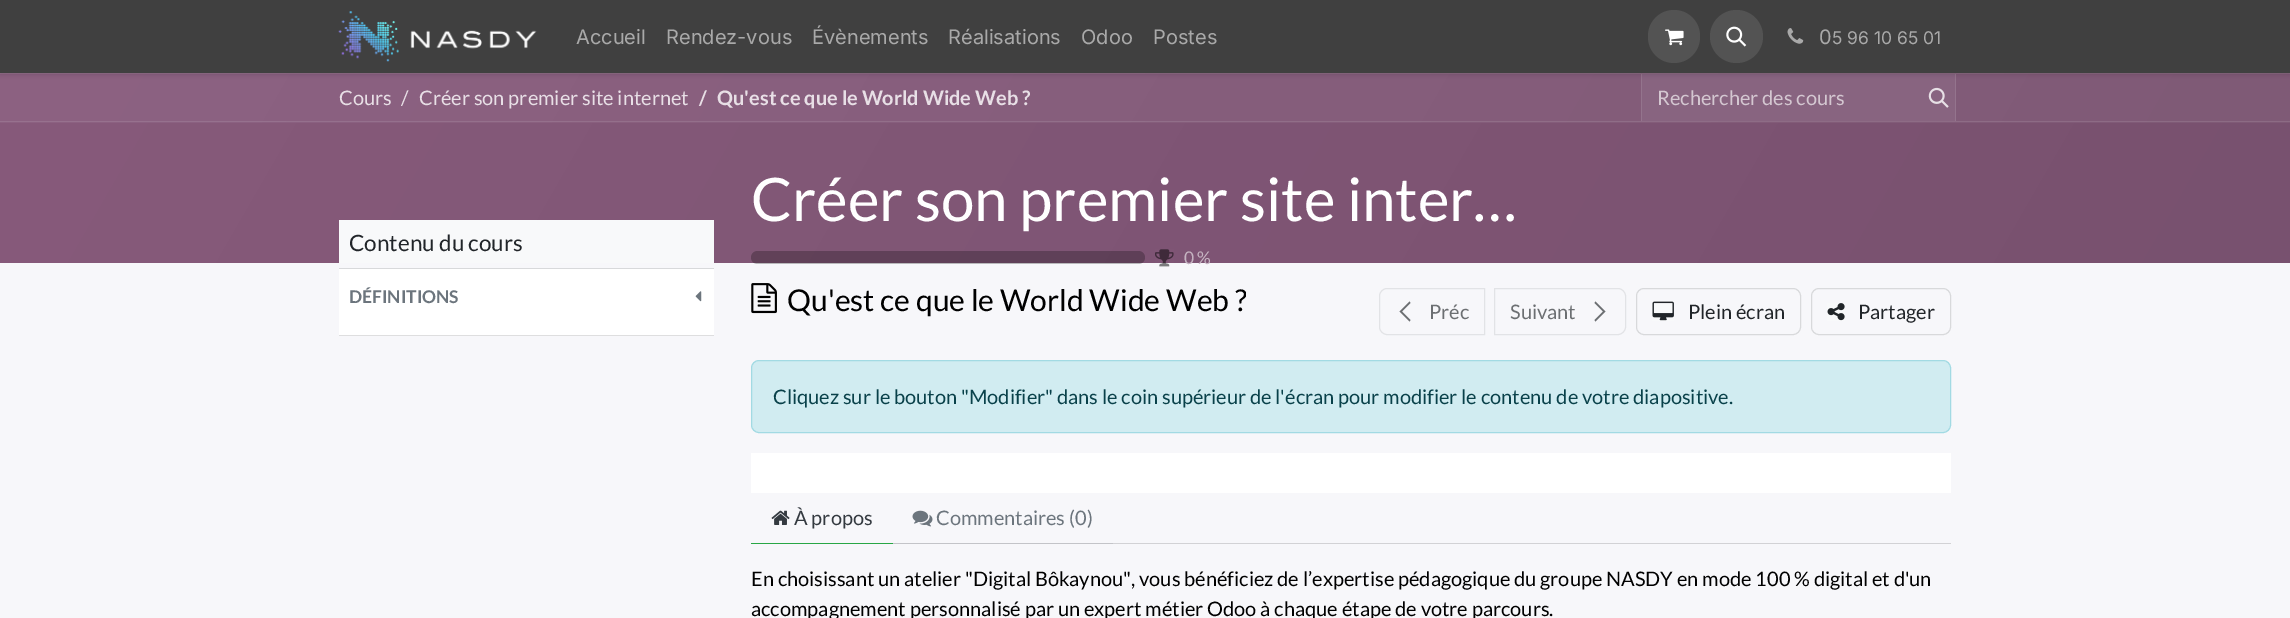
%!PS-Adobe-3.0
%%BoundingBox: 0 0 2290 618
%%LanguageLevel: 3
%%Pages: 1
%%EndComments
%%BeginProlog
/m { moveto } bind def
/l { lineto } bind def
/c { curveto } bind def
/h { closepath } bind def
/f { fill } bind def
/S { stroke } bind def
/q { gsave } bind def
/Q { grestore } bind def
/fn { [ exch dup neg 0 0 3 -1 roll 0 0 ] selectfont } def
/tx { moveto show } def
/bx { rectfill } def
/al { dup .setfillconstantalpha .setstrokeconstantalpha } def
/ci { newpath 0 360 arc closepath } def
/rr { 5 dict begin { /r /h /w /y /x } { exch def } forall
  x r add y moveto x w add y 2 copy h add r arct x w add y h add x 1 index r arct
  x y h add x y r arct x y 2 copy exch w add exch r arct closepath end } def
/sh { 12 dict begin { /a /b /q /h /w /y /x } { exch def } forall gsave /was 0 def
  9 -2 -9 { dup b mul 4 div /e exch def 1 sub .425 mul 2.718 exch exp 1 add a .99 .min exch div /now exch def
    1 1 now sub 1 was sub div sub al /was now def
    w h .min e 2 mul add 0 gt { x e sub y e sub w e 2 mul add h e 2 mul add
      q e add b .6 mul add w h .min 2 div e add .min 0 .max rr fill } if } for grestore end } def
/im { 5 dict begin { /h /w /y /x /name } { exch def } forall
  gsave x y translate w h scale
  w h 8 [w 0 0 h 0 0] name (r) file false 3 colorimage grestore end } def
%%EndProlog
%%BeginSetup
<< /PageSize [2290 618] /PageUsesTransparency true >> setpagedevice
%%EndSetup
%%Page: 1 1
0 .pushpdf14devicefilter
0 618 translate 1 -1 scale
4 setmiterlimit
1 setgray
0 0 2290 618 bx
q 0 74 m 2290 74 l 2290 123 l 0 123 l h clip newpath
<< /ShadingType 2 /ColorSpace /DeviceRGB /Coords [245 -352 2045 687] /Extend [true true] /Function << /FunctionType 2 /Domain [0 1] /C0 [0.553 0.384 0.51] /C1 [0.498 0.353 0.463] /N 1 >> >> shfill Q
q 0 73 m 2290 73 l 2290 74 l 0 74 l h clip newpath
<< /ShadingType 2 /ColorSpace /DeviceRGB /Coords [245 -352 2045 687] /Extend [true true] /Function << /FunctionType 2 /Domain [0 1] /C0 [0.596 0.447 0.561] /C1 [0.549 0.42 0.518] /N 1 >> >> shfill Q
0.533 0.392 0.502 setrgbcolor
1642 74 313 47 bx
0.58 0.455 0.553 setrgbcolor
1955 74 1 47 bx
1641 74 1 47 bx
q
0 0 m 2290 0 l 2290 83 l 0 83 l h 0 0 m 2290 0 l 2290 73 l 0 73 l h eoclip newpath
0 setgray
0 0 2290 73 0 3 0.25 sh
Q
0.75 al
0 setgray
0 0 2290 73 bx
1 al
(image0.raw) 338 11 199 51 im
/Inter-Regular 20 fn
0.663 setgray
(Accueil) 576 44 tx
(Rendez-vous) 666 44 tx
(Évènements) 812 44 tx
(Réalisations) 948 44 tx
(Odoo) 1081 44 tx
(Postes) 1153 44 tx
0.325 setgray
1648 10 52 53 26 rr f
(image1.raw) 1665 29 19 17 im
1736.5 36.5 26.5 ci f
(image2.raw) 1726 26 21 21 im
(image3.raw) 1787 28 17 16 im
0.663 setgray
(0) 1819 44 tx
/Inter-Regular 17.5 fn
(5 96 10 65 01) 1832 44 tx
0.969 0.969 0.98 setrgbcolor
0 263 2290 355 bx
q 0 123 m 2290 123 l 2290 263 l 0 263 l h clip newpath
<< /ShadingType 2 /ColorSpace /DeviceRGB /Coords [245 -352 2045 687] /Extend [true true] /Function << /FunctionType 2 /Domain [0 1] /C0 [0.529 0.353 0.482] /C1 [0.471 0.318 0.435] /N 1 >> >> shfill Q
q 0 121 m 2290 121 l 2290 122 l 0 122 l h clip newpath
<< /ShadingType 2 /ColorSpace /DeviceRGB /Coords [245 -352 2045 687] /Extend [true true] /Function << /FunctionType 2 /Domain [0 1] /C0 [0.596 0.447 0.561] /C1 [0.549 0.42 0.518] /N 1 >> >> shfill Q
/Lato-Regular 20 fn
0.91 0.875 0.902 setrgbcolor
(Cours) 339 105 tx
(/) 401 105 tx
(Créer son premier site internet) 419 105 tx
/Lato-Bold 20 fn
(/) 699 105 tx
(Qu'est ce que le World Wide Web ?) 717 105 tx
/Lato-Regular 20 fn
0.831 0.78 0.82 setrgbcolor
(Rechercher des cours) 1657 105 tx
(image4.raw) 1928 87 21 21 im
/Lato-Regular 60 fn
1 setgray
(Créer son premier site inter…) 751 221 tx
0.25 al
0 setgray
751 251 394 13 6.5 rr f
1 al
(image5.raw) 1155 249 19 18 im
/Lato-Regular 17.5 fn
0.773 0.702 0.757 setrgbcolor
(0) 1184 264 tx
(%) 1197 264 tx
1 setgray
339 269 375 66 bx
0.871 0.871 0.875 setrgbcolor
339 335 375 1 bx
0.973 0.976 0.98 setrgbcolor
339 220 375 43 bx
0.847 0.851 0.859 setrgbcolor
339 268 375 1 bx
/Lato-Regular 22.5 fn
0.129 0.145 0.161 setrgbcolor
(Contenu du cours) 349 251 tx
/Lato-Bold 17.5 fn
0.424 0.459 0.49 setrgbcolor
(DÉFINITIONS) 349 303 tx
(image6.raw) 695 291 7 11 im
(image7.raw) 751 283 26 31 im
q
788 283 458 36 rectclip
/Lato-Regular 30 fn
0 setgray
(Qu'est ce que le World Wide Web ?) 787 311 tx
Q
0.886 0.89 0.902 setrgbcolor
1387 288.5 m 1484.5 288.5 l 1484.5 334.5 l 1387 334.5 l 1383 334.5 1379.5 331 1379.5 327 c 1379.5 296 l 1379.5 292 1383 288.5 1387 288.5 c h S
0.424 0.435 0.447 setrgbcolor
1399.5 311.5 m 1409.5 301.5 l 1410.5 303 l 1402 311.5 l 1410.5 320 l 1409.5 321.5 l h f
/Lato-Regular 20 fn
(Préc) 1429 319 tx
0.886 0.89 0.902 setrgbcolor
1494.5 288.5 m 1618 288.5 l 1622 288.5 1625.5 292 1625.5 296 c 1625.5 327 l 1625.5 331 1622 334.5 1618 334.5 c 1494.5 334.5 l h S
0.424 0.435 0.447 setrgbcolor
(Suivant) 1510 319 tx
1605.5 311.5 m 1595.5 321.5 l 1594.5 320 l 1603 311.5 l 1594.5 303 l 1595.5 301.5 l h f
0.847 0.851 0.859 setrgbcolor
1636.5 288.5 164 46 7.5 rr S
(image8.raw) 1652 301 22 20 im
0.129 0.145 0.161 setrgbcolor
(Plein écran) 1688 319 tx
0.847 0.851 0.859 setrgbcolor
1811.5 288.5 139 46 7.5 rr S
(image9.raw) 1827 303 18 18 im
0.129 0.145 0.161 setrgbcolor
(Partager) 1858 319 tx
0.82 0.925 0.945 setrgbcolor
751.5 360.5 1199 72 7.5 rr q f Q
0.635 0.855 0.89 setrgbcolor
S
0.035 0.255 0.29 setrgbcolor
(Cliquez sur le bouton "Modifier" dans le coin supérieur de l'écran pour modifier le contenu de votre diapositive.) 773 404 tx
1 setgray
751 453 1200 40 bx
0.824 0.824 0.835 setrgbcolor
1113 543 838 1 bx
0.157 0.655 0.271 setrgbcolor
751 543 142 1 bx
(image10.raw) 771 510 19 15 im
0.204 0.227 0.251 setrgbcolor
(À propos) 794 525 tx
0.765 0.769 0.784 setrgbcolor
893 543 220 1 bx
(image11.raw) 912 510 21 17 im
0.424 0.459 0.49 setrgbcolor
(Commentaires \(0\)) 936 525 tx
0 setgray
(En choisissant un atelier "Digital Bôkaynou", vous bénéficiez de l’expertise pédagogique du groupe NASDY en mode 100 % digital et d'un) 751 586 tx
(accompagnement personnalisé par un expert métier Odoo à chaque étape de votre parcours.) 751 616 tx
.poppdf14devicefilter showpage
%%EOF
